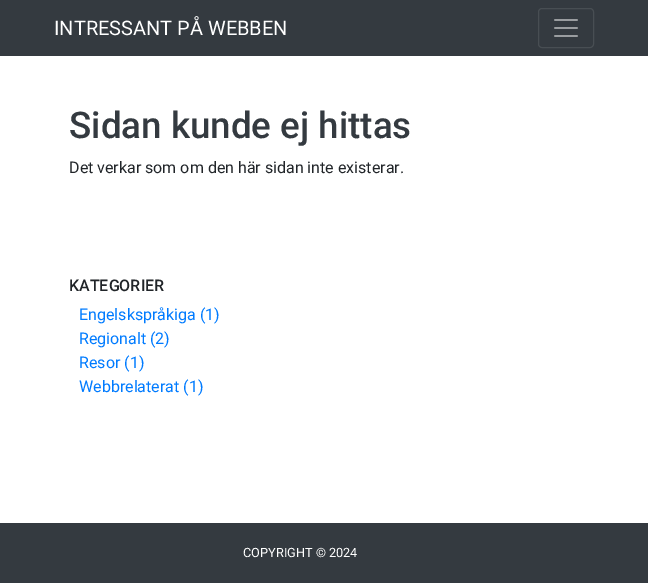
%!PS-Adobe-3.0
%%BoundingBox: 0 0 648 583
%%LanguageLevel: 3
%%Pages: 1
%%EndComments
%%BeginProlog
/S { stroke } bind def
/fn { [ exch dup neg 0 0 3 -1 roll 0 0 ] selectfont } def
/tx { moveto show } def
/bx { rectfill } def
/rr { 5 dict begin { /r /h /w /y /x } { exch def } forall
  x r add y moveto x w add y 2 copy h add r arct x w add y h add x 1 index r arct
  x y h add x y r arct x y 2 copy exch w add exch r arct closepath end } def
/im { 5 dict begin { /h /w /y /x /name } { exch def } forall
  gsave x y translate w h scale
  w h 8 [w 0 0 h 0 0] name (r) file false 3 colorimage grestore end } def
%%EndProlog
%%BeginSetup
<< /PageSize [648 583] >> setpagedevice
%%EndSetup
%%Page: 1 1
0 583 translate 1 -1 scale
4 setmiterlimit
1 setgray
0 0 648 583 bx
0.204 0.227 0.251 setrgbcolor
0 0 648 56 bx
/Roboto-Regular 20 fn
1 setgray
(INTRESSANT PÅ WEBBEN) 54 35 tx
0.282 0.306 0.325 setrgbcolor
538.5 8.5 55 39 3.5 rr S
(image0.raw) 554 19 24 18 im
/Roboto-Medium 36.75 fn
0.204 0.227 0.251 setrgbcolor
(Sidan kunde ej hittas) 69 138 tx
/Roboto-Regular 16 fn
0.129 0.145 0.161 setrgbcolor
(Det verkar som om den här sidan inte existerar.) 69 173 tx
/Roboto-Medium 16 fn
(KATEGORIER) 69 291 tx
/Roboto-Regular 16 fn
0 0.482 1 setrgbcolor
(Engelskspråkiga \(1\)) 79 320 tx
(Regionalt \(2\)) 79 344 tx
(Resor \(1\)) 79 368 tx
(Webbrelaterat \(1\)) 79 392 tx
0.204 0.227 0.251 setrgbcolor
0 523 648 60 bx
/Roboto-Regular 12.75 fn
1 setgray
(COPYRIGHT © 2024) 243 557 tx
showpage
%%EOF
